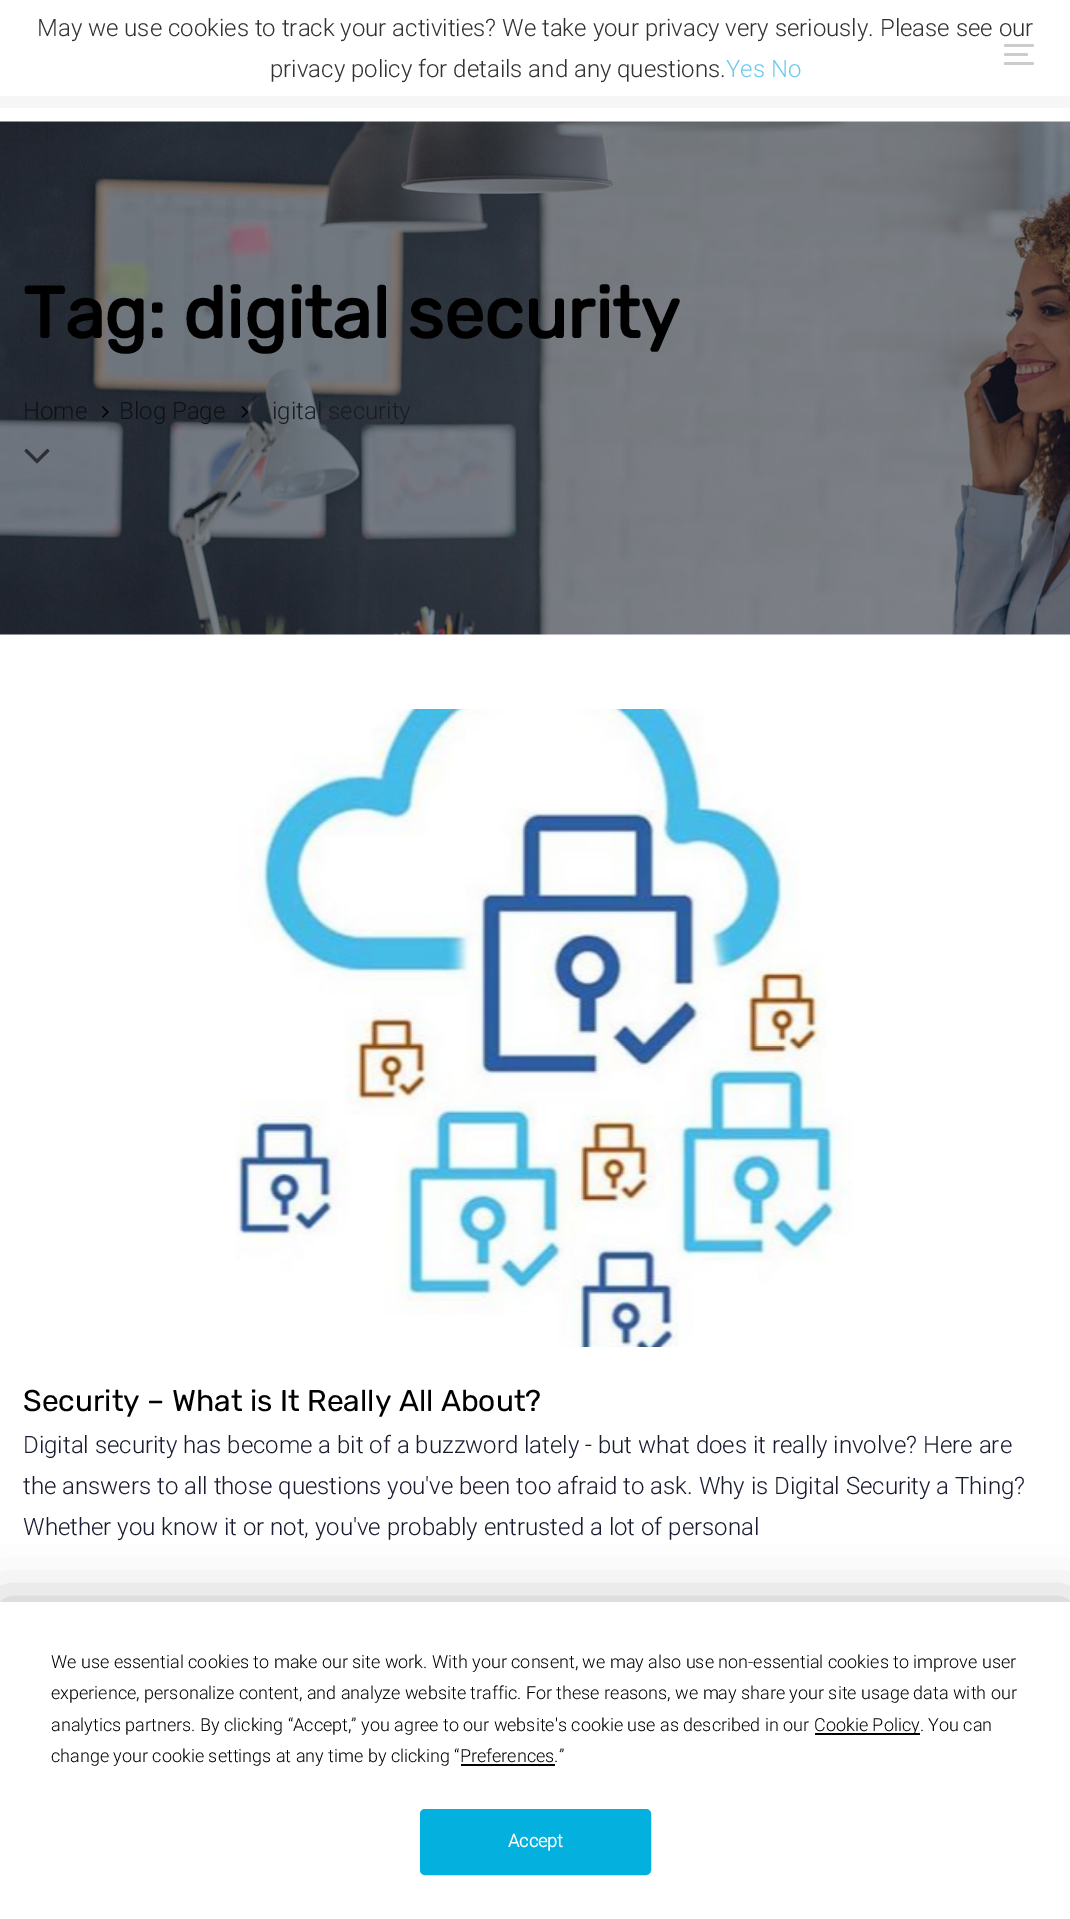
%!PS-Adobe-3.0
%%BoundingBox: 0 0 1070 1919
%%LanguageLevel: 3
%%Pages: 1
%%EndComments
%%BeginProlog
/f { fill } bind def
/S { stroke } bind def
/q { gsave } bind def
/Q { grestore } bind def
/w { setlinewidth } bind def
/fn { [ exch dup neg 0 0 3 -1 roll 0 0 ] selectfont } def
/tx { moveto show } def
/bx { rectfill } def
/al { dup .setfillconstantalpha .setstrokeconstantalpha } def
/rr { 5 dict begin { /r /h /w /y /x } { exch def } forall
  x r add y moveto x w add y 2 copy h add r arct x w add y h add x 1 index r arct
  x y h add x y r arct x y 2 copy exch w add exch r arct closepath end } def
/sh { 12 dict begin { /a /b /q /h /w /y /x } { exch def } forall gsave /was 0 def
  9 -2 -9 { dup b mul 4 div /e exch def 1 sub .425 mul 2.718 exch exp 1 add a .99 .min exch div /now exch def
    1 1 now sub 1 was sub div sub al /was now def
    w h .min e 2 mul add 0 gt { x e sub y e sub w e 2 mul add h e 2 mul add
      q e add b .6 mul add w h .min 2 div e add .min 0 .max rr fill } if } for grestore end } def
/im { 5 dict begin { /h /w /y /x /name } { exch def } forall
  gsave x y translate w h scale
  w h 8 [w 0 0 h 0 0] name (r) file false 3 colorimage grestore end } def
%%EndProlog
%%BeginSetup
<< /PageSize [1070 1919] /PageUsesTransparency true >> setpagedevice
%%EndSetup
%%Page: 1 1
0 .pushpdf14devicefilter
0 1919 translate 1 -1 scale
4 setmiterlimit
1 setgray
0 0 1070 1919 bx
/Roboto-Light 24 fn
0.192 setgray
(May we use cookies to track your activities? We take your privacy very seriously. Please see our) 37 36 tx
(privacy policy for details and any questions.) 270 77 tx
0.412 0.784 0.922 setrgbcolor
(Yes No) 726 77 tx
0.965 setgray
0 96 1070 12 bx
0.8 setgray
1004 44 30 3 1.5 rr f
1004 53 24 3 1.5 rr f
1004 62 30 3 1.5 rr f
(image0.raw) 0 121 1070 514 im
/Rubik-Bold 72 fn
0 setgray
(Tag: digital security) 23 338 tx
/Roboto-Light 24 fn
0.055 0.067 0.078 setrgbcolor
(Home) 23 419 tx
(image1.raw) 102 406 7 12 im
(Blog Page) 119 419 tx
(image2.raw) 241 406 8 12 im
0.098 0.11 0.125 setrgbcolor
(igital security) 272 419 tx
(image3.raw) 24 448 26 16 im
(image4.raw) 236 709 616 638 im
/Rubik-Regular 30 fn
0 setgray
(Security – What is It Really All About?) 23 1411 tx
/Roboto-Light 24 fn
0.094 0.106 0.192 setrgbcolor
(Digital security has become a bit of a buzzword lately - but what does it really involve? Here are) 23 1453 tx
(the answers to all those questions you've been too afraid to ask. Why is Digital Security a Thing?) 23 1494 tx
(Whether you know it or not, you've probably entrusted a lot of personal) 23 1535 tx
0 setgray
0 1602 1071 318 0 26 0.25 sh
1 setgray
0 1602 1070 317 bx
/Roboto-Light 18 fn
0 setgray
(We use essential cookies to make our site work. With your consent, we may also use non-essential cookies to improve user) 51 1668 tx
(experience, personalize content, and analyze website traffic. For these reasons, we may share your site usage data with our) 51 1699 tx
(analytics partners. By clicking “Accept,” you agree to our website's cookie use as described in our) 51 1731 tx
815 1733 105 2 bx
(Cookie Policy. You can) 814 1731 tx
(change your cookie settings at any time by clicking “Preferences.”) 51 1762 tx
461 1764 94 2 bx
0.016 0.69 0.871 setrgbcolor
421 1810 229 64 4 rr q f Q
2 w
S
/Roboto-Bold 18 fn
1 setgray
(Accept) 508 1847 tx
.poppdf14devicefilter showpage
%%EOF
